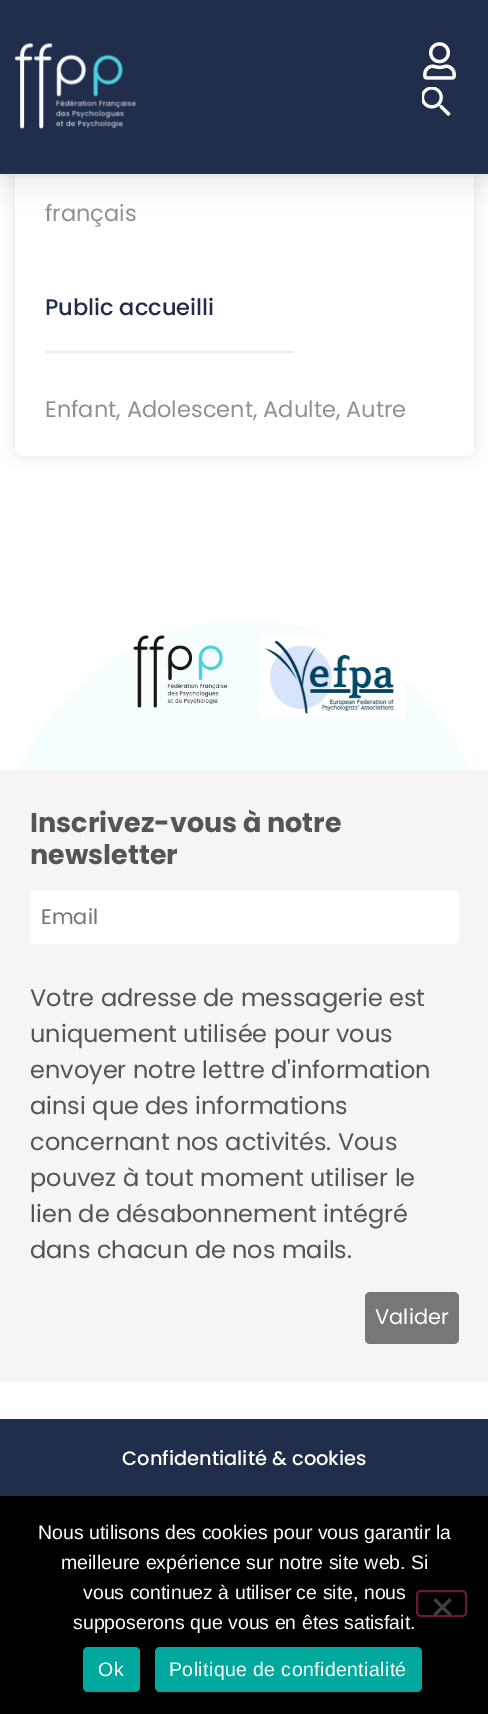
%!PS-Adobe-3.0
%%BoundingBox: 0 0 488 1714
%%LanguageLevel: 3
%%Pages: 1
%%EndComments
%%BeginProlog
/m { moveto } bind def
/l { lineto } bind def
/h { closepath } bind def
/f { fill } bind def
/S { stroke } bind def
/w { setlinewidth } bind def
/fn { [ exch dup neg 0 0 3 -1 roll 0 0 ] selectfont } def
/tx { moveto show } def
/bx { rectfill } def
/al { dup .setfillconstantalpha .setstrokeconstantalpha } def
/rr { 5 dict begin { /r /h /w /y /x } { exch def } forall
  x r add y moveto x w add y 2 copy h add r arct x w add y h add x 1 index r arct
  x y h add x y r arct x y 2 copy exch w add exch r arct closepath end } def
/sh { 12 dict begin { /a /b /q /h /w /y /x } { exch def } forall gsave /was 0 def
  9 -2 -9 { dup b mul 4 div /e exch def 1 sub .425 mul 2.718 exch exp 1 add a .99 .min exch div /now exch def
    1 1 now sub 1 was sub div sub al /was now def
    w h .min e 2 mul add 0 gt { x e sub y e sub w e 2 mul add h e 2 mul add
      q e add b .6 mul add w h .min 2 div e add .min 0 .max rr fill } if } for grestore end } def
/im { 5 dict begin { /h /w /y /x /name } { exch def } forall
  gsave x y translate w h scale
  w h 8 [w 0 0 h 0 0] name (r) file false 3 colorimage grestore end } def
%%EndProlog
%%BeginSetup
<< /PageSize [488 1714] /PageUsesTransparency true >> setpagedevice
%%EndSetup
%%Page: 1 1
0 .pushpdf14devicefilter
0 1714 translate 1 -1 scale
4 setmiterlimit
1 setgray
0 0 488 1714 bx
0 setgray
15 -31 459 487 8 7.5 0.1 sh
1 setgray
15 -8 459 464 8 rr f
0 setgray
0 0 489 174 0 18 0.15 sh
0.125 0.176 0.294 setrgbcolor
0 0 488 174 bx
(image0.raw) 15 43 121 86 im
(image1.raw) 423 42 33 38 im
(image2.raw) 422 87 29 30 im
/Poppins-Regular 22.5 fn
0.565 0.565 0.549 setrgbcolor
(français) 45 221 tx
/Poppins-Medium 22.5 fn
0.125 0.176 0.294 setrgbcolor
(Public accueilli) 45 315 tx
0.922 setgray
45 351 248 2 bx
/Poppins-Regular 22.5 fn
0.565 0.565 0.549 setrgbcolor
(Enfant, Adolescent, Adulte, Autre) 45 417 tx
(image3.raw) 19 620 451 150 im
(image4.raw) 133 635 95 73 im
(image5.raw) 259 635 146 82 im
0.961 setgray
0 770 488 612 bx
/Poppins-Bold 27 fn
0.333 setgray
(Inscrivez-vous à notre) 30 832 tx
(newsletter) 30 864 tx
1 setgray
30 891 429 53 5 rr f
/Poppins-Regular 21 fn
0.459 setgray
(Email) 41 924 tx
/Poppins-Regular 24 fn
0.333 setgray
(Votre adresse de messagerie est) 30 1006 tx
(uniquement utilisée pour vous) 30 1042 tx
(envoyer notre lettre d'information) 30 1078 tx
(ainsi que des informations) 30 1114 tx
(concernant nos activités. Vous) 30 1150 tx
(pouvez à tout moment utiliser le) 30 1186 tx
(lien de désabonnement intégré) 30 1222 tx
(dans chacun de nos mails.) 30 1258 tx
0.467 setgray
365 1292 94 52 5 rr f
/Poppins-Regular 21 fn
1 setgray
(Valider) 375 1324 tx
0.125 0.176 0.294 setrgbcolor
0 1419 488 77 bx
/Poppins-Medium 19.5 fn
1 setgray
(Confidentialité & cookies) 122 1465 tx
0 setgray
0 1496 488 218 bx
/LiberationSans-Regular 19.5 fn
1 setgray
(Nous utilisons des cookies pour vous garantir la) 38 1539 tx
(meilleure expérience sur notre site web. Si) 61 1569 tx
(vous continuez à utiliser ce site, nous) 83 1599 tx
(supposerons que vous en êtes satisfait.) 73 1629 tx
0.4 0.102 0.2 setrgbcolor
2 w
417 1591 49 25 4 rr S
0.251 setgray
449.5 1598 m 451.5 1600.5 l 435.5 1616.5 l 433.5 1614 l h f
433.5 1600.5 m 435.5 1598 l 451.5 1614 l 449.5 1616.5 l h f
0 0.663 0.616 setrgbcolor
83 1647 57 45 5 rr f
1 setgray
98 1676 m 0.4 0 (Ok) ashow
0 0.663 0.616 setrgbcolor
155 1647 267 45 5 rr f
1 setgray
169 1676 m 0.4 0 (Politique de confidentialité) ashow
.poppdf14devicefilter showpage
%%EOF
